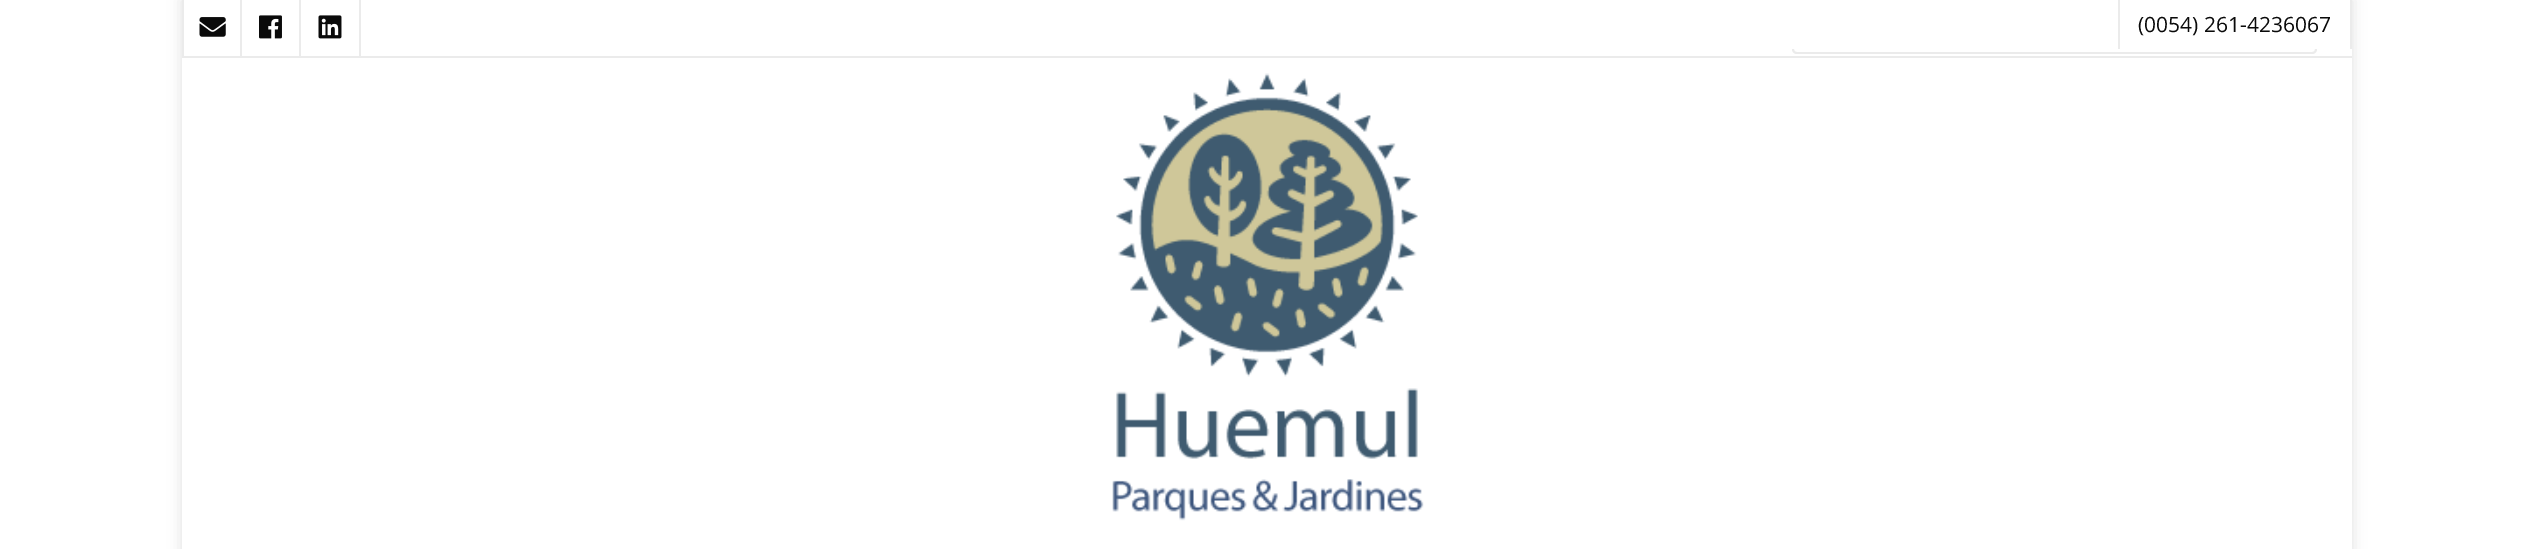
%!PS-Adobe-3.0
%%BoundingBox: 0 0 2534 549
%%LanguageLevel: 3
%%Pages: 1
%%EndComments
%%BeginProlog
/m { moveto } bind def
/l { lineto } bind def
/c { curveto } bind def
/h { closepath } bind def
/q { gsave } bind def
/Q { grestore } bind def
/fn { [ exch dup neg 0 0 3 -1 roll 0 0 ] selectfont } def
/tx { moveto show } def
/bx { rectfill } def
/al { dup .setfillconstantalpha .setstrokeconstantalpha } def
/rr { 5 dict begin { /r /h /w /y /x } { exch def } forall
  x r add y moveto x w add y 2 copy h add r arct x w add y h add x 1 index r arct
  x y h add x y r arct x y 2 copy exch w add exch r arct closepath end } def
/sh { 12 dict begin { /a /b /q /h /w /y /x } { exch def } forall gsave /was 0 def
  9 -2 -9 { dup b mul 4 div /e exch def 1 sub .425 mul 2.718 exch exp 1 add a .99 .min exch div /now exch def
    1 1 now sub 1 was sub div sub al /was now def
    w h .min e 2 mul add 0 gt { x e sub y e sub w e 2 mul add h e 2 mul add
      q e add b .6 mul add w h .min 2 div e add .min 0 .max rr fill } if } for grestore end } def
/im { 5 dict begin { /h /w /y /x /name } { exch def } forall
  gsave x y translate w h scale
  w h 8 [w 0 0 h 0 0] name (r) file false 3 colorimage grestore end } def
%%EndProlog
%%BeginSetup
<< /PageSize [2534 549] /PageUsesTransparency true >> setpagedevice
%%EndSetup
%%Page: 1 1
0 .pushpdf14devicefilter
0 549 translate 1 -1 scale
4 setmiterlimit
1 setgray
0 0 2534 549 bx
q
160 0 m 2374 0 l 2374 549 l 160 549 l h 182 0 m 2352 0 l 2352 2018 l 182 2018 l h eoclip newpath
0 setgray
182 0 2170 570 0 7 0.12 sh
Q
0.922 setgray
182 56 2170 2 bx
182 0 2 56 bx
240 0 2 56 bx
(image0.raw) 199 17 27 20 im
299 0 2 56 bx
(image1.raw) 259 15 23 24 im
359 0 2 56 bx
(image2.raw) 318 15 24 24 im
1792 -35 m 2317 -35 l 2317 49 l 2317 52 2315 54 2312 54 c 1797 54 l 1794 54 1792 52 1792 49 c h 1794 -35 m 2315 -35 l 2315 49 l 2315 51 2314 52 2312 52 c 1797 52 l 1795 52 1794 51 1794 49 c h eofill
1 setgray
1792 0 525 49 bx
0.922 setgray
2350 0 2 49 bx
2118 0 2 49 bx
/OpenSans-Regular 21 fn
0.039 setgray
(\(0054\) 261-4236067) 2138 32 tx
(image3.raw) 1112 73 312 448 im
.poppdf14devicefilter showpage
%%EOF
